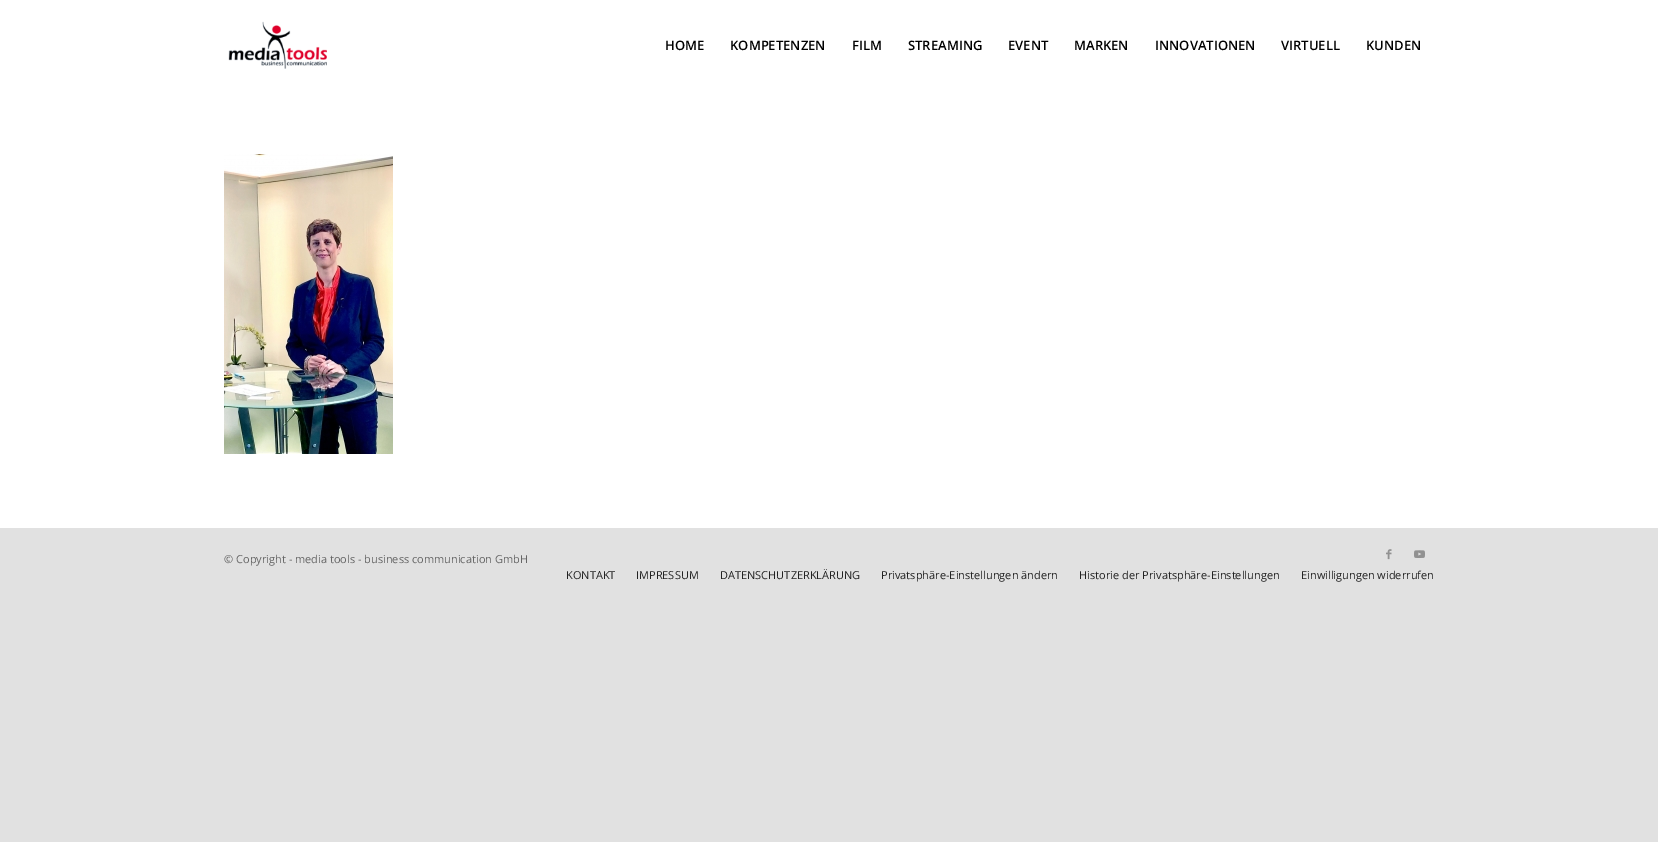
%!PS-Adobe-3.0
%%BoundingBox: 0 0 1658 842
%%LanguageLevel: 3
%%Pages: 1
%%EndComments
%%BeginProlog
/fn { [ exch dup neg 0 0 3 -1 roll 0 0 ] selectfont } def
/tx { moveto show } def
/bx { rectfill } def
/im { 5 dict begin { /h /w /y /x /name } { exch def } forall
  gsave x y translate w h scale
  w h 8 [w 0 0 h 0 0] name (r) file false 3 colorimage grestore end } def
%%EndProlog
%%BeginSetup
<< /PageSize [1658 842] >> setpagedevice
%%EndSetup
%%Page: 1 1
0 842 translate 1 -1 scale
4 setmiterlimit
0.882 setgray
0 0 1658 842 bx
1 setgray
0 0 1658 528 bx
(image0.raw) 228 21 99 48 im
/OpenSans-SemiBold 13 fn
0 setgray
(HOME) 665 50 tx
(KOMPETENZEN) 730 50 tx
(FILM) 852 50 tx
(STREAMING) 908 50 tx
(EVENT) 1008 50 tx
(MARKEN) 1074 50 tx
(INNOVATIONEN) 1155 50 tx
(VIRTUELL) 1281 50 tx
(KUNDEN) 1366 50 tx
(image1.raw) 224 154 169 300 im
/OpenSans-Regular 11 fn
0.4 setgray
(© Copyright - media tools - business communication GmbH) 224 563 tx
(image2.raw) 1386 549 6 11 im
(image3.raw) 1414 550 11 8 im
0.133 setgray
(KONTAKT) 566 579 tx
(IMPRESSUM) 636 579 tx
(DATENSCHUTZERKLÄRUNG) 720 579 tx
(Privatsphäre-Einstellungen ändern) 881 579 tx
(Historie der Privatsphäre-Einstellungen) 1079 579 tx
(Einwilligungen widerrufen) 1301 579 tx
showpage
%%EOF
